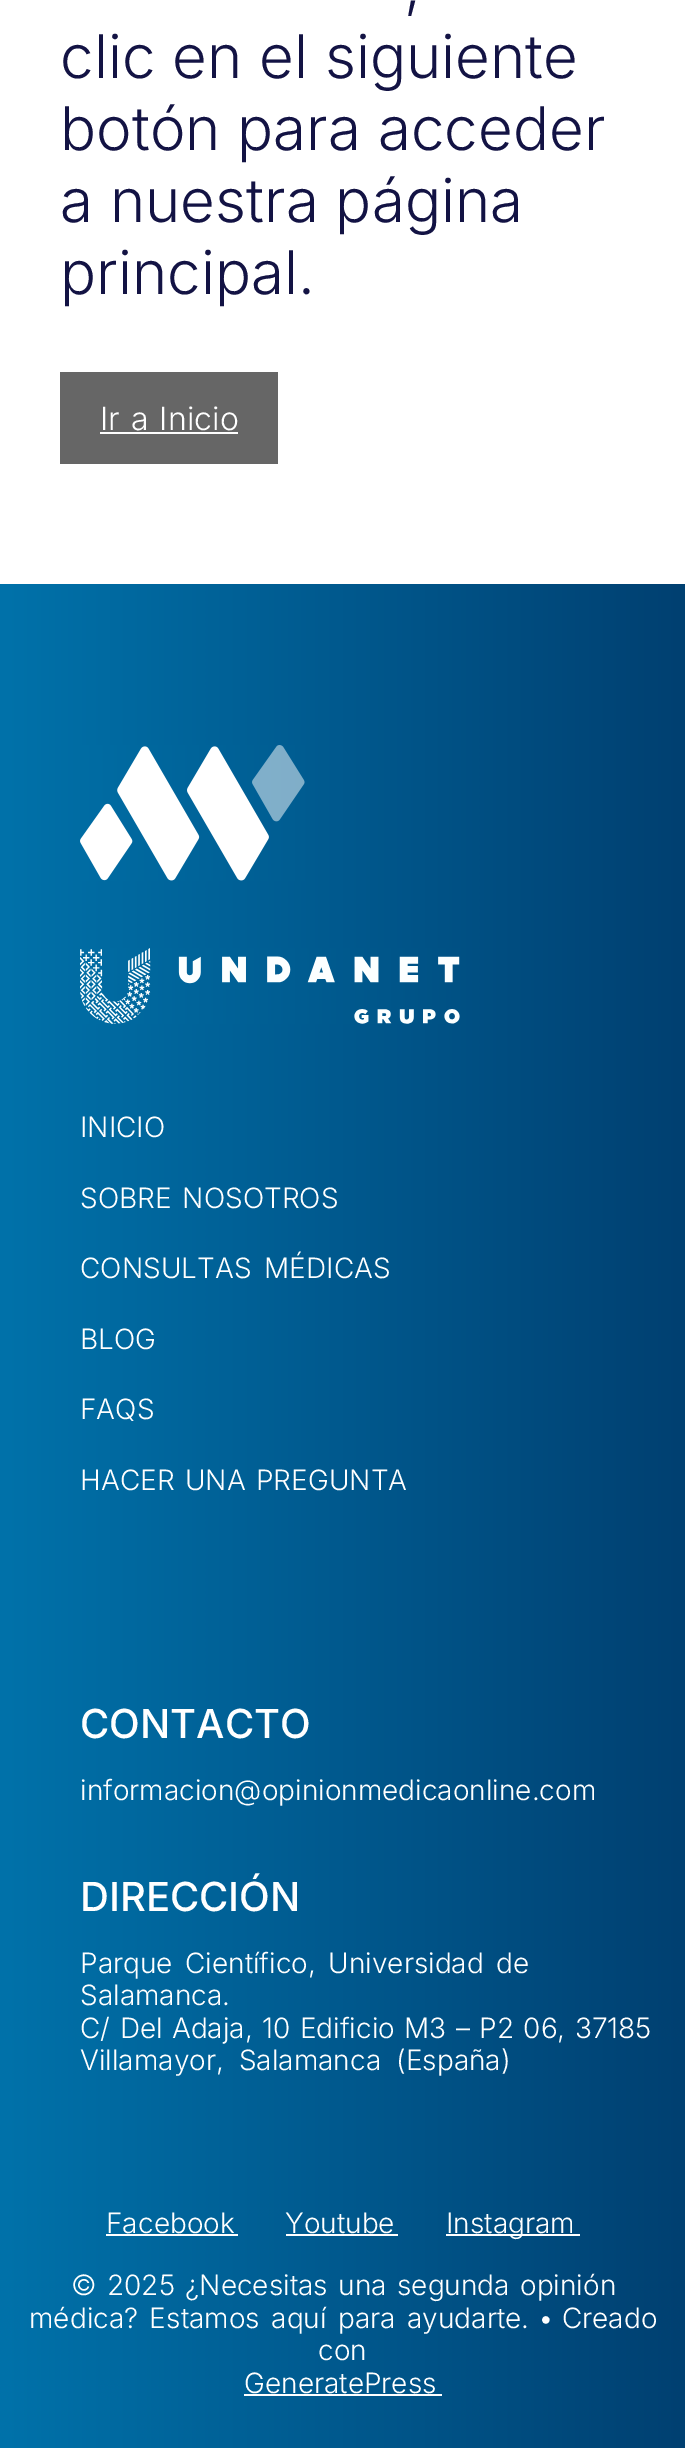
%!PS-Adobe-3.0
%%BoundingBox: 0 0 685 2448
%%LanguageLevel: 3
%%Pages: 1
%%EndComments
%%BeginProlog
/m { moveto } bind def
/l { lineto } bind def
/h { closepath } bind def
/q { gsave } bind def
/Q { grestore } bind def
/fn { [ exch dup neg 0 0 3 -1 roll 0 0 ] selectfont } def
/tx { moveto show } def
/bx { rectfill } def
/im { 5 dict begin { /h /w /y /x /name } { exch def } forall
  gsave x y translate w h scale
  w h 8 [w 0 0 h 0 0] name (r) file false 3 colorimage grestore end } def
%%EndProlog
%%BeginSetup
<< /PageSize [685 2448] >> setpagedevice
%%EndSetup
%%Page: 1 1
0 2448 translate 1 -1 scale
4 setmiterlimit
1 setgray
0 0 685 2448 bx
/Inter-Light 60 fn
0.075 0.075 0.267 setrgbcolor
(,) 404 6 tx
(clic en el siguiente) 60 78 tx
(botón para acceder) 60 150 tx
(a nuestra página) 60 222 tx
(principal.) 60 294 tx
0.4 setgray
60 372 218 92 bx
/Inter-Light 32 fn
1 setgray
100 430 m 2 0 32 (Ir a Inicio) widthshow
100 432 138 2 bx
q 0 584 m 685 584 l 685 2448 l 0 2448 l h clip newpath
<< /ShadingType 2 /ColorSpace /DeviceRGB /Coords [0 1636 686 1636] /Extend [true true] /Function << /FunctionType 2 /Domain [0 1] /C0 [0 0.447 0.667] /C1 [0 0.251 0.443] /N 1 >> >> shfill Q
(image0.raw) 80 745 225 136 im
(image1.raw) 80 948 380 76 im
/Inter-Light 28 fn
(INICIO) 80 1137 tx
80 1208 m 3 0 32 (SOBRE NOSOTROS) widthshow
80 1278 m 5 0 32 (CONSULTAS MÉDICAS) widthshow
(BLOG) 80 1349 tx
(FAQS) 80 1419 tx
80 1490 m 2.5 0 32 (HACER UNA PREGUNTA) widthshow
/Inter-Medium 40 fn
(CONTACTO) 80 1738 tx
/Inter-Light 28 fn
(informacion@opinionmedicaonline.com) 80 1800 tx
/Inter-Medium 40 fn
(DIRECCIÓN) 80 1911 tx
/Inter-Light 28 fn
80 1973 m 4.5 0 32 (Parque Científico, Universidad de) widthshow
(Salamanca.) 80 2005 tx
80 2038 m 1.5 0 32 (C/ Del Adaja, 10 Edificio M3 – P2 06, 37185) widthshow
80 2070 m 7 0 32 (Villamayor, Salamanca \(España\)) widthshow
(Facebook) 106 2233 tx
106 2234 132 2 bx
(Youtube) 285 2233 tx
286 2234 112 2 bx
446 2234 134 2 bx
(Instagram) 446 2233 tx
71 2295 m 2.5 0 32 (© 2025 ¿Necesitas una segunda opinión) widthshow
29 2328 m 3.5 0 32 (médica? Estamos aquí para ayudarte.) widthshow
(• Creado) 538 2328 tx
(con) 318 2360 tx
(GeneratePress) 244 2393 tx
244 2394 198 2 bx
showpage
%%EOF
